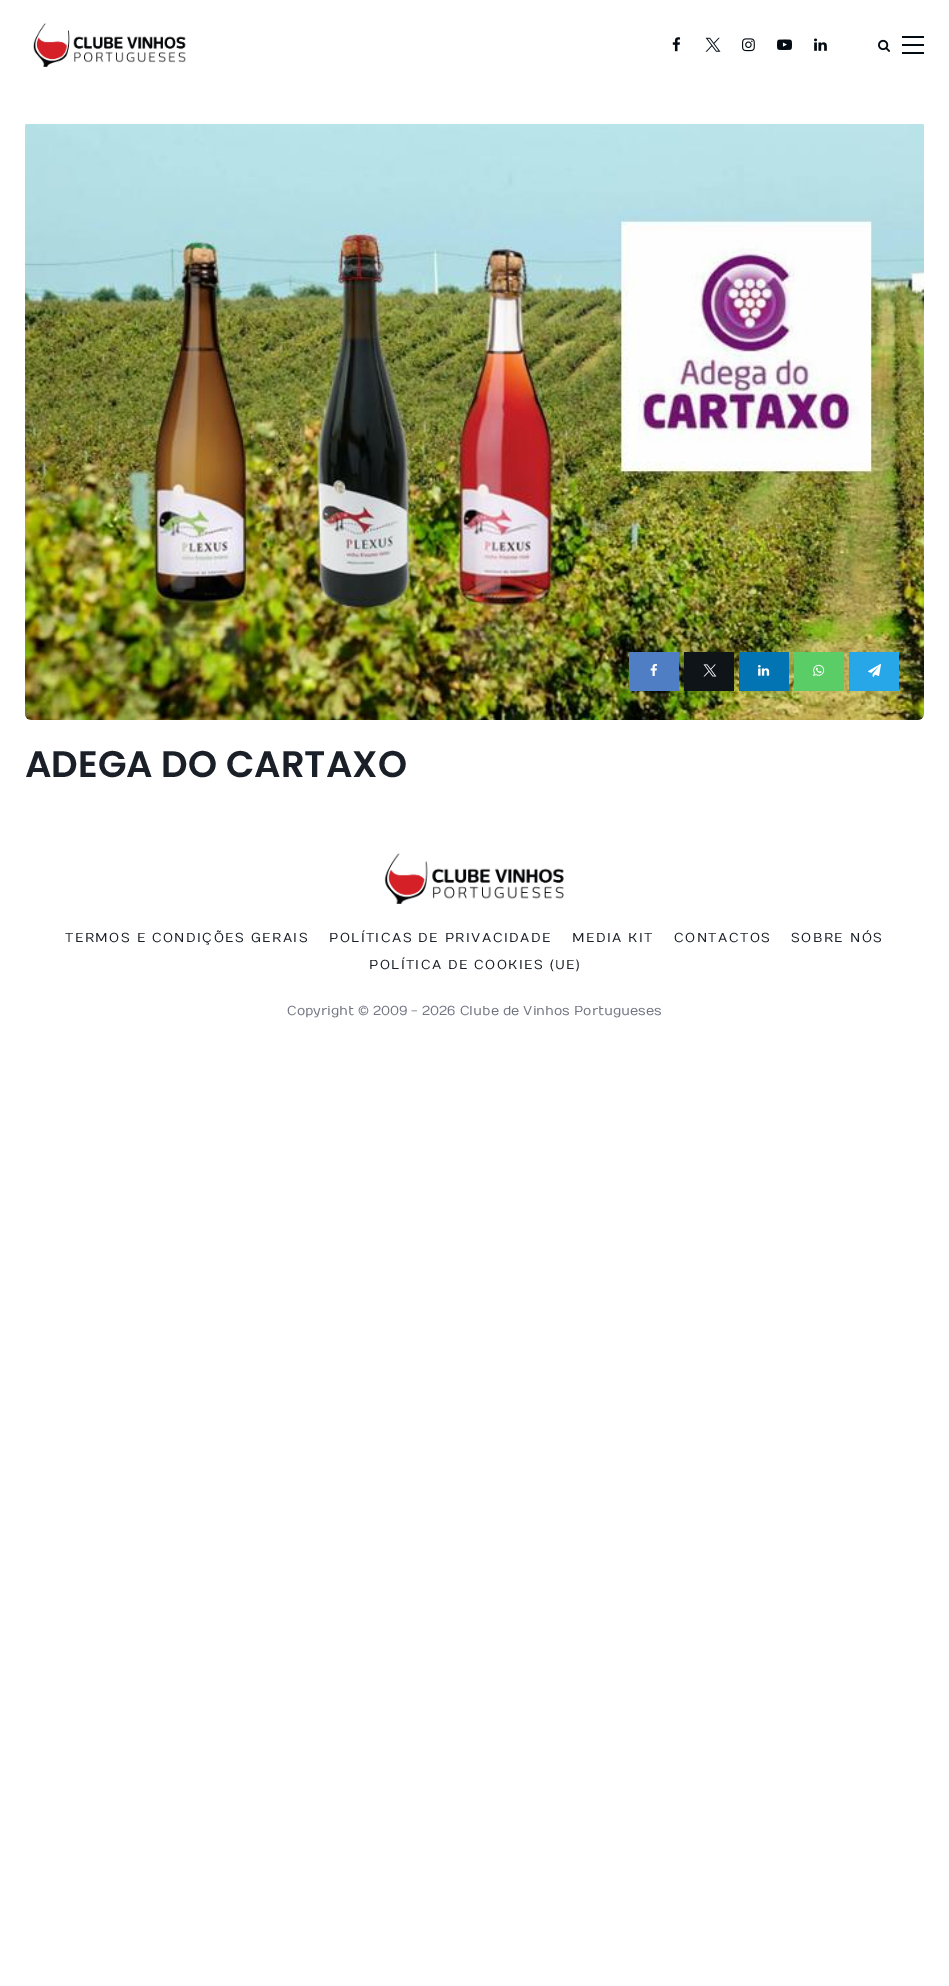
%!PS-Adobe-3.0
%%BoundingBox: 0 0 949 1986
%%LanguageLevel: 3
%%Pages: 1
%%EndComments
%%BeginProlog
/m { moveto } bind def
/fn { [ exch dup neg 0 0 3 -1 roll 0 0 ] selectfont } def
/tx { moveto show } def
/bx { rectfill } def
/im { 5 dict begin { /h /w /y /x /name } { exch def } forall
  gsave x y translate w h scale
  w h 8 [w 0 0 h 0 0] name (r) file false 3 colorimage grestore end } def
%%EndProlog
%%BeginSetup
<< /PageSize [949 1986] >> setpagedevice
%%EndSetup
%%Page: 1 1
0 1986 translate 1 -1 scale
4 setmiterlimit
1 setgray
0 0 949 1986 bx
(image0.raw) 33 23 153 44 im
(image1.raw) 672 37 9 15 im
(image2.raw) 705 37 16 15 im
(image3.raw) 742 38 13 14 im
(image4.raw) 777 39 15 11 im
(image5.raw) 814 38 13 13 im
(image6.raw) 878 39 12 13 im
0.012 0.043 0.071 setrgbcolor
902 36 22 2 bx
902 44 22 2 bx
902 52 22 2 bx
(image7.raw) 25 124 899 596 im
0.31 0.494 0.773 setrgbcolor
629 652 50 39 bx
(image8.raw) 650 663 7 13 im
0.059 0.078 0.098 setrgbcolor
684 652 50 39 bx
(image9.raw) 703 664 14 13 im
0.008 0.455 0.702 setrgbcolor
739 652 50 39 bx
(image10.raw) 758 665 12 11 im
0.353 0.804 0.4 setrgbcolor
794 652 50 39 bx
(image11.raw) 813 664 12 12 im
0.153 0.655 0.91 setrgbcolor
849 652 50 39 bx
(image12.raw) 868 664 13 13 im
/Poppins-SemiBold 37 fn
0.102 0.122 0.157 setrgbcolor
(ADEGA DO CARTAXO) 25 777 tx
(image13.raw) 384 853 180 51 im
/Numans-Regular 13 fn
65 942 m 1.5 0 (TERMOS E CONDIÇÕES GERAIS) ashow
329 942 m 1.5 0 (POLÍTICAS DE PRIVACIDADE) ashow
572 942 m 1.5 0 (MEDIA KIT) ashow
674 942 m 1.5 0 (CONTACTOS) ashow
791 942 m 1.5 0 (SOBRE NÓS) ashow
369 969 m 1.5 0 (POLÍTICA DE COOKIES \(UE\)) ashow
0.443 0.459 0.51 setrgbcolor
(Copyright © 2009 - 2026 Clube de Vinhos Portugueses) 287 1015 tx
showpage
%%EOF
